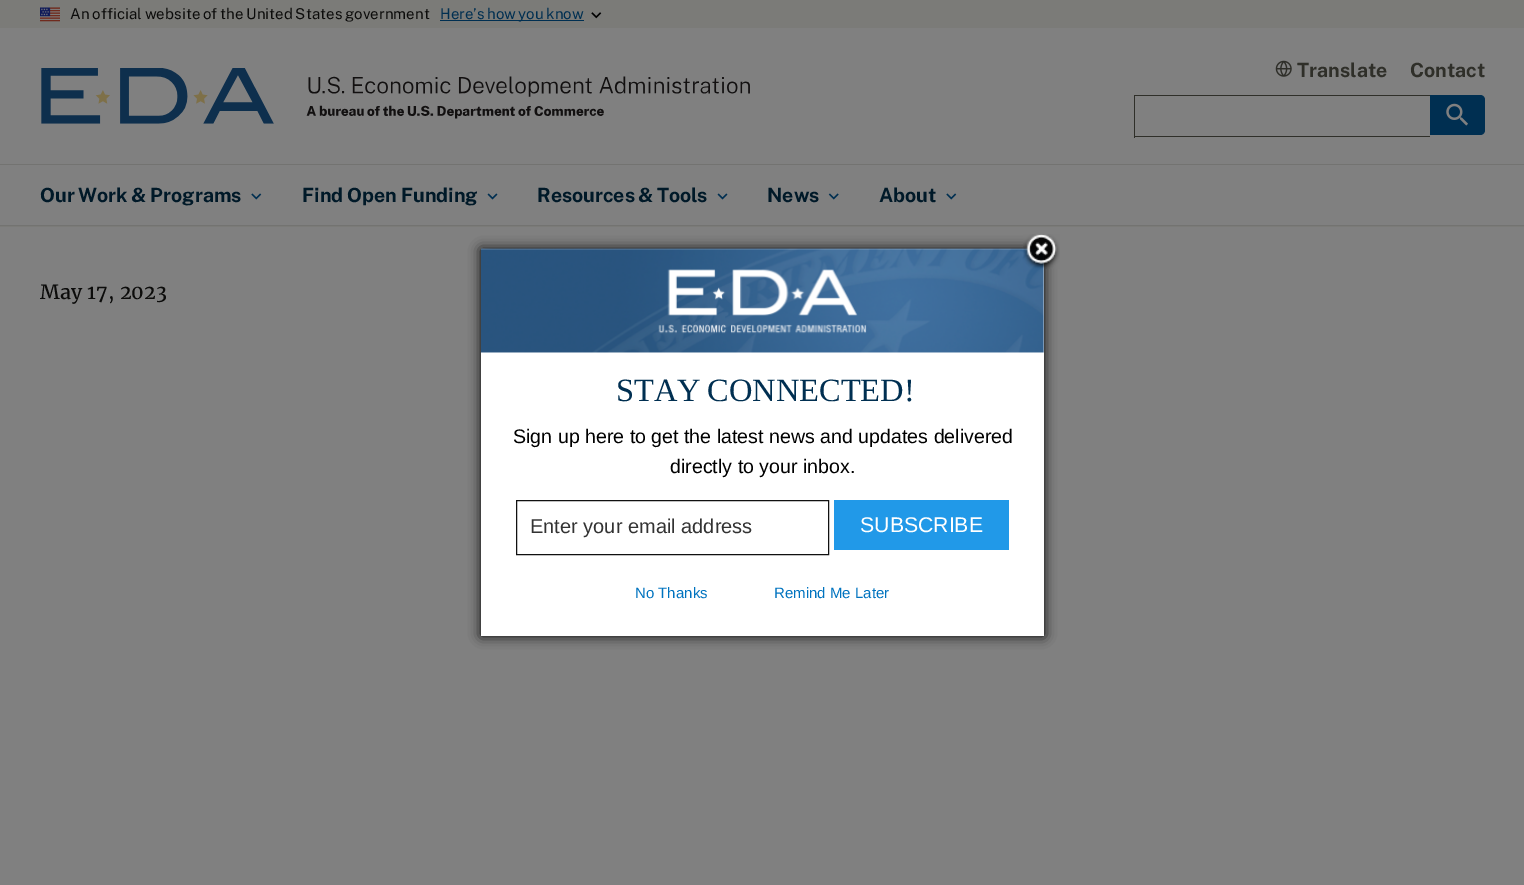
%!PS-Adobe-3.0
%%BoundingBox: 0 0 1524 885
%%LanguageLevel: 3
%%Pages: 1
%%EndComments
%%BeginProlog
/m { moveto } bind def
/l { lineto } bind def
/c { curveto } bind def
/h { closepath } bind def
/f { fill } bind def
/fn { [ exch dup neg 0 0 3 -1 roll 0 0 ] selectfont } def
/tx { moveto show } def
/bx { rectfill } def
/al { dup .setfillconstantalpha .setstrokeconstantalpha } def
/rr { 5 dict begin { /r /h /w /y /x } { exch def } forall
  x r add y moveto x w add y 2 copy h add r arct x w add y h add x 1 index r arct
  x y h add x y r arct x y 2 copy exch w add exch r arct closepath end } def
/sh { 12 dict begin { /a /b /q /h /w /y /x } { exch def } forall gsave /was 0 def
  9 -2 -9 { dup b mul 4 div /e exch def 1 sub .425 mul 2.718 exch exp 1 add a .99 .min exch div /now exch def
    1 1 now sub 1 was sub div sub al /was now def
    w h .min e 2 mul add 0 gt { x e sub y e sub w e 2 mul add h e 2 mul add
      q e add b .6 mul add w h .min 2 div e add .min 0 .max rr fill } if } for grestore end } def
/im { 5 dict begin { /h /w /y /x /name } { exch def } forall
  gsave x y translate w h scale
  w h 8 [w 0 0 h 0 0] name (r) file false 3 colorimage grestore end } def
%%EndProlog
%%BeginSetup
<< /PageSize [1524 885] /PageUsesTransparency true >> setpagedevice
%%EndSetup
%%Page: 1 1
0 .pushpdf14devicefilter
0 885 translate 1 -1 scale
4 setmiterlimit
0.502 setgray
0 0 1524 885 bx
0.482 0.482 0.471 setrgbcolor
0 0 1524 28 bx
(image0.raw) 40 7 20 15 im
/PublicSans-Regular 15 fn
0.047 0.047 0.043 setrgbcolor
70 19 m -0.75 0 32 (An official website of the United States government) widthshow
0 0.184 0.318 setrgbcolor
440 20 144 1 bx
440 19 m -1 0 32 (Here’s how you know) widthshow
(image1.raw) 591 12 11 7 im
0.451 0.451 0.443 setrgbcolor
0 164 1524 1 bx
0 225 1524 1 bx
(image2.raw) 1275 60 17 17 im
/PublicSans-Bold 19.6 fn
0.184 0.184 0.161 setrgbcolor
(Translate) 1297 77 tx
(Contact) 1410 77 tx
1134 95 296 1 bx
1134 136 296 1 bx
1134 95 1 43 bx
0 0.184 0.318 setrgbcolor
1430 95 m 1480 95 l 1483 95 1485 97 1485 100 c 1485 130 l 1485 133 1483 135 1480 135 c 1430 135 l h f
(image3.raw) 1446 103 22 23 im
(image4.raw) 251 193 11 7 im
0 0.098 0.157 setrgbcolor
40 202 m -0.5 0 32 (Our Work & Programs) widthshow
(image5.raw) 487 193 11 7 im
(Find Open Funding) 302 202 tx
(image5.raw) 717 193 11 7 im
537 202 m -1 0 32 (Resources & Tools) widthshow
(image6.raw) 828 193 11 7 im
(News) 767 202 tx
(image4.raw) 946 193 11 7 im
(About) 879 202 tx
(image7.raw) 41 68 709 56 im
0.482 0.482 0.471 setrgbcolor
0 226 1524 1 bx
/Merriweather-Regular 19.6 fn
0.047 0.047 0.043 setrgbcolor
(May 17, 2023) 40 299 tx
0 setgray
481 249 563 387 0 6 1 sh
1 setgray
481 249 563 387 bx
(image9.raw) 481 248 563 105 im
(image8.raw) 1023 234 37 35 im
/LiberationSerif-Regular 32.5 fn
0 0.184 0.318 setrgbcolor
616 401 m -2 0 32 (STAY CONNECTED!) widthshow
/LiberationSans-Regular 19.6 fn
0 setgray
(Sign up here to get the latest news and updates delivered) 513 443 tx
(directly to your inbox.) 670 473 tx
0.067 setgray
516.5 500.5 312 54 rectstroke
/LiberationSans-Regular 20 fn
0.2 setgray
(Enter your email address) 530 533 tx
0.129 0.6 0.91 setrgbcolor
834 500 175 50 bx
/LiberationSans-Regular 21.25 fn
1 setgray
(SUBSCRIBE) 860 532 tx
/LiberationSans-Regular 15 fn
0 0.451 0.749 setrgbcolor
(No Thanks) 635 598 tx
(Remind Me Later) 774 598 tx
.poppdf14devicefilter showpage
%%EOF
